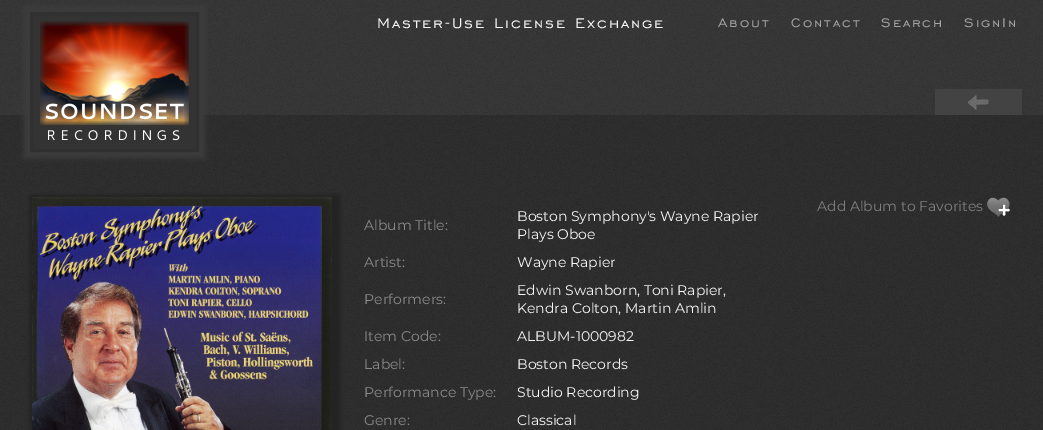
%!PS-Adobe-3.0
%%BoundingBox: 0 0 1043 430
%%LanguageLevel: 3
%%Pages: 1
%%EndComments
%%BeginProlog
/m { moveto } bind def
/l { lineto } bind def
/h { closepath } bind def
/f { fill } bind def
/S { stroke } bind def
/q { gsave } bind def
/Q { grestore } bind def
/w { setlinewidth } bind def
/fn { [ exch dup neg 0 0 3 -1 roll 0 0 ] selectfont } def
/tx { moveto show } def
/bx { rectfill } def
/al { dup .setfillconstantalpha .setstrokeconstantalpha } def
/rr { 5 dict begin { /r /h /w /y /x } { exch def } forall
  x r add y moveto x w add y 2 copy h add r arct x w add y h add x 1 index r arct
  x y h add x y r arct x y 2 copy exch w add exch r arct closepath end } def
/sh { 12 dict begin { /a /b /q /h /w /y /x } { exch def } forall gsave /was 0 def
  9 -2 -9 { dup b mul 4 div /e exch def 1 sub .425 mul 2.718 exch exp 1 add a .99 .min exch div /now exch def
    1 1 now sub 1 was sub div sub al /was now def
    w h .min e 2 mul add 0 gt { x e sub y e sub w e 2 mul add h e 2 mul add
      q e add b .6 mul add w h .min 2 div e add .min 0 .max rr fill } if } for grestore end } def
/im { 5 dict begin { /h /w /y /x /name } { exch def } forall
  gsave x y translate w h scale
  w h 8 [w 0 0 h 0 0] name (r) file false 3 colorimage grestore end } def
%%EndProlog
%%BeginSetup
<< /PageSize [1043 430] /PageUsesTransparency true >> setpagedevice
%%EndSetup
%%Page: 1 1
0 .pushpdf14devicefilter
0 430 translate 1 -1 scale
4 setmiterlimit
0.165 setgray
0 0 1043 430 bx
(image0.raw) 0 115 1043 315 im
0.2 setgray
0 0 1043 115 bx
(image1.raw) 0 0 1043 115 im
0.235 setgray
24 6 181 152 0 2.5 1 sh
0.2 setgray
31.5 13.5 m 197.5 13.5 l 197.5 150.5 l 31.5 150.5 l h q f Q
0.188 setgray
3 w
S
(image2.raw) 40 21 149 120 im
/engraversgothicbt-Regular 18 fn
0.969 setgray
377 28 m 2 0 (Master-Use License Exchange) ashow
/engraversgothicbt-Regular 16 fn
0.647 setgray
718 27 m 2 0 (About) ashow
791 27 m 2 0 (Contact) ashow
881 27 m 2 0 (Search) ashow
964 27 m 2 0 (SignIn) ashow
0.93 al
0.267 setgray
935 89 87 26 bx
1 al
(image3.raw) 968 95 21 15 im
0.133 setgray
30 195 310 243 0 2.5 1 sh
(image4.raw) 32 197 300 233 im
/Montserrat-Regular 14 fn
0.502 setgray
(Add Album to Favorites) 817 211 tx
(image5.raw) 987 197 23 21 im
0.541 setgray
(Album Title:) 364 230 tx
0.969 setgray
(Boston Symphony's Wayne Rapier) 517 221 tx
(Plays Oboe) 517 239 tx
0.541 setgray
(Artist:) 364 267 tx
0.969 setgray
(Wayne Rapier) 517 267 tx
0.541 setgray
(Performers:) 364 304 tx
0.969 setgray
(Edwin Swanborn, Toni Rapier,) 517 295 tx
(Kendra Colton, Martin Amlin) 517 313 tx
0.541 setgray
(Item Code:) 364 341 tx
0.969 setgray
(ALBUM-1000982) 517 341 tx
0.541 setgray
(Label:) 364 369 tx
0.969 setgray
(Boston Records) 517 369 tx
0.541 setgray
(Performance Type:) 364 397 tx
0.969 setgray
(Studio Recording) 517 397 tx
0.541 setgray
(Genre:) 364 425 tx
0.969 setgray
(Classical) 517 425 tx
.poppdf14devicefilter showpage
%%EOF
